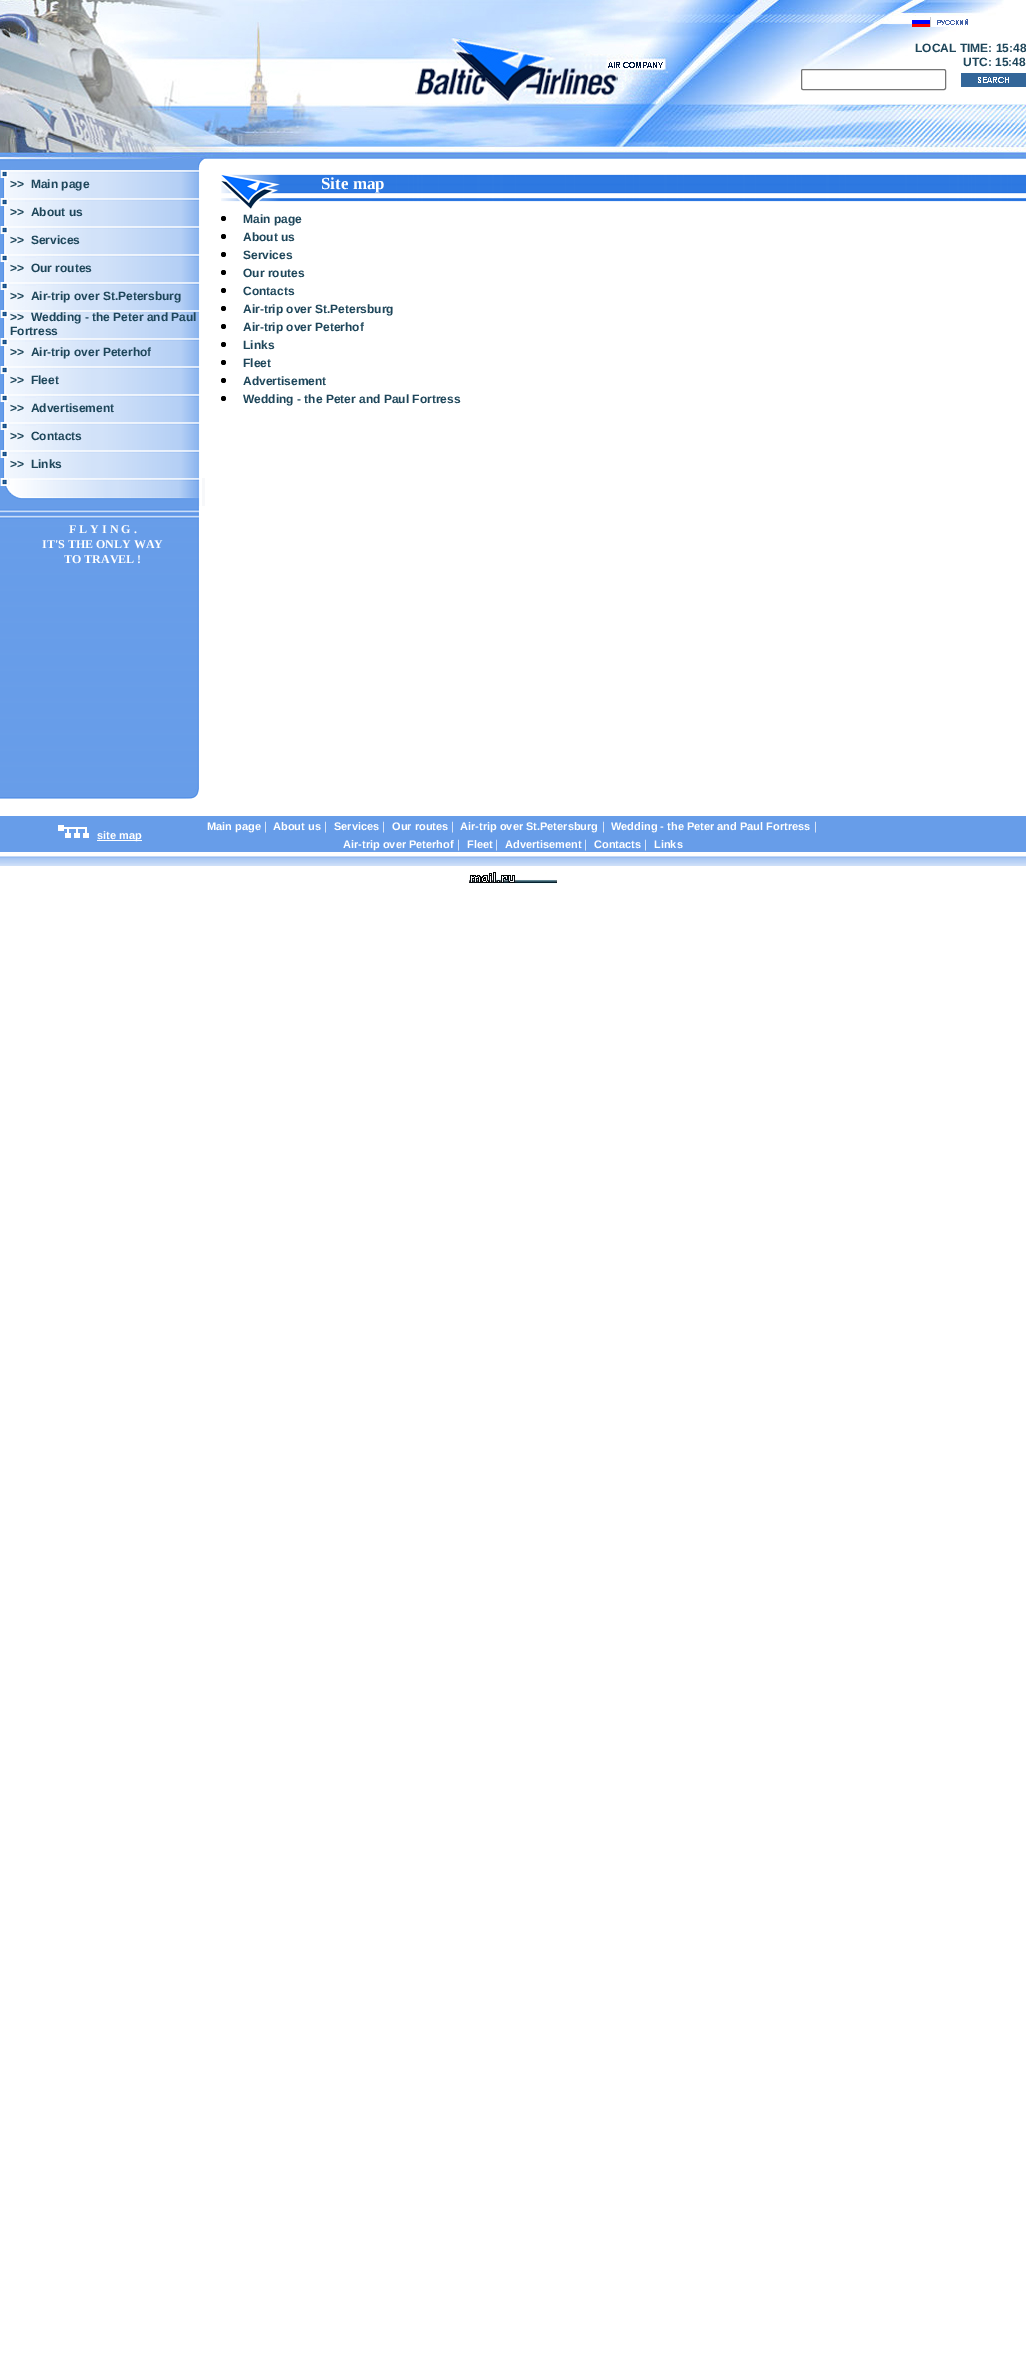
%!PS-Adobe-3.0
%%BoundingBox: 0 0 1026 2359
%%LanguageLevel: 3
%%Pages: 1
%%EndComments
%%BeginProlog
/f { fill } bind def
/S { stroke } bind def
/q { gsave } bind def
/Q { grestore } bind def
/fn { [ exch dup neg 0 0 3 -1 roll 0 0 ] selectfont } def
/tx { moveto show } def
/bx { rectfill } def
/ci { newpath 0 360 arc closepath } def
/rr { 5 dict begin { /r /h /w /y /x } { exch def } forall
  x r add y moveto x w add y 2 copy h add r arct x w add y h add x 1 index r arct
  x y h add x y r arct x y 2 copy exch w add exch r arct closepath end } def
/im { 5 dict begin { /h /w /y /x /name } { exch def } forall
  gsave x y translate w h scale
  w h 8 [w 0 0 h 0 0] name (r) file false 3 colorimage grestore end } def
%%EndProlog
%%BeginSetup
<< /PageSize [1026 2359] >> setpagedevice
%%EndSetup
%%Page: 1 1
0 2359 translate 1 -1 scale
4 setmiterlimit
1 setgray
0 0 1026 2359 bx
(image0.raw) 0 0 668 159 im
(image1.raw) 668 0 358 159 im
(image2.raw) 912 17 56 10 im
/LiberationSans-Bold 12 fn
0.118 0.275 0.353 setrgbcolor
(LOCAL TIME: 15:48) 915 52 tx
(UTC: 15:48) 963 66 tx
1 setgray
801.5 69.5 144 20 1.5 rr q f Q
0.463 setgray
S
(image3.raw) 961 73 65 14 im
(image4.raw) 0 506 199 283 im
(image5.raw) 0 159 204 11 im
(image6.raw) 0 170 10 28 im
(image7.raw) 10 170 190 28 im
0.118 0.275 0.353 setrgbcolor
(>>  Main page) 10 188 tx
(image6.raw) 0 198 10 28 im
(image7.raw) 10 198 190 28 im
(>>  About us) 10 216 tx
(image6.raw) 0 226 10 28 im
(image7.raw) 10 226 190 28 im
(>>  Services) 10 244 tx
(image6.raw) 0 254 10 28 im
(image7.raw) 10 254 190 28 im
(>>  Our routes) 10 272 tx
(image6.raw) 0 282 10 28 im
(image7.raw) 10 282 190 28 im
(>>  Air-trip over St.Petersburg) 10 300 tx
(image6.raw) 0 310 10 28 im
(image7.raw) 10 310 190 28 im
(>>  Wedding - the Peter and Paul) 10 321 tx
(Fortress) 10 335 tx
(image6.raw) 0 338 10 28 im
(image7.raw) 10 338 190 28 im
(>>  Air-trip over Peterhof) 10 356 tx
(image6.raw) 0 366 10 28 im
(image7.raw) 10 366 190 28 im
(>>  Fleet) 10 384 tx
(image6.raw) 0 394 10 28 im
(image7.raw) 10 394 190 28 im
(>>  Advertisement) 10 412 tx
(image6.raw) 0 422 10 28 im
(image7.raw) 10 422 190 28 im
(>>  Contacts) 10 440 tx
(image6.raw) 0 450 10 28 im
(image7.raw) 10 450 190 28 im
(>>  Links) 10 468 tx
(image8.raw) 0 478 205 28 im
(image9.raw) 0 509 199 10 im
/LiberationSerif-Bold 12 fn
1 setgray
(F L Y I N G .) 69 533 tx
(IT'S THE ONLY WAY) 42 548 tx
(TO TRAVEL !) 64 563 tx
(image10.raw) 0 789 199 27 im
(image11.raw) 221 174 805 35 im
/LiberationSerif-Bold 17 fn
(Site map) 321 189 tx
0 setgray
223.5 218.5 2.5 ci f
/LiberationSans-Bold 12 fn
0.118 0.275 0.353 setrgbcolor
(Main page) 243 223 tx
0 setgray
223.5 236.5 2.5 ci f
0.118 0.275 0.353 setrgbcolor
(About us) 243 241 tx
0 setgray
223.5 254.5 2.5 ci f
0.118 0.275 0.353 setrgbcolor
(Services) 243 259 tx
0 setgray
223.5 272.5 2.5 ci f
0.118 0.275 0.353 setrgbcolor
(Our routes) 243 277 tx
0 setgray
223.5 290.5 2.5 ci f
0.118 0.275 0.353 setrgbcolor
(Contacts) 243 295 tx
0 setgray
223.5 308.5 2.5 ci f
0.118 0.275 0.353 setrgbcolor
(Air-trip over St.Petersburg) 243 313 tx
0 setgray
223.5 326.5 2.5 ci f
0.118 0.275 0.353 setrgbcolor
(Air-trip over Peterhof) 243 331 tx
0 setgray
223.5 344.5 2.5 ci f
0.118 0.275 0.353 setrgbcolor
(Links) 243 349 tx
0 setgray
223.5 362.5 2.5 ci f
0.118 0.275 0.353 setrgbcolor
(Fleet) 243 367 tx
0 setgray
223.5 380.5 2.5 ci f
0.118 0.275 0.353 setrgbcolor
(Advertisement) 243 385 tx
0 setgray
223.5 398.5 2.5 ci f
0.118 0.275 0.353 setrgbcolor
(Wedding - the Peter and Paul Fortress) 243 403 tx
0.404 0.616 0.914 setrgbcolor
0 816 1026 36 bx
(image12.raw) 58 825 31 13 im
1 setgray
97 840 45 1 bx
/LiberationSans-Bold 11 fn
(site map) 97 839 tx
(Main page) 207 830 tx
/LiberationSerif-Bold 12 fn
(|) 264 830 tx
/LiberationSans-Bold 11 fn
(About us) 273 830 tx
/LiberationSerif-Bold 12 fn
(|) 324 830 tx
/LiberationSans-Bold 11 fn
(Services) 334 830 tx
/LiberationSerif-Bold 12 fn
(|) 382 830 tx
/LiberationSans-Bold 11 fn
(Our routes) 392 830 tx
/LiberationSerif-Bold 12 fn
(|) 451 830 tx
/LiberationSans-Bold 11 fn
(Air-trip over St.Petersburg) 460 830 tx
/LiberationSerif-Bold 12 fn
(|) 602 830 tx
/LiberationSans-Bold 11 fn
(Wedding - the Peter and Paul Fortress) 611 830 tx
/LiberationSerif-Bold 12 fn
(|) 814 830 tx
/LiberationSans-Bold 11 fn
(Air-trip over Peterhof) 343 848 tx
/LiberationSerif-Bold 12 fn
(|) 457 848 tx
/LiberationSans-Bold 11 fn
(Fleet) 467 848 tx
/LiberationSerif-Bold 12 fn
(|) 495 848 tx
/LiberationSans-Bold 11 fn
(Advertisement) 505 848 tx
/LiberationSerif-Bold 12 fn
(|) 584 848 tx
/LiberationSans-Bold 11 fn
(Contacts) 594 848 tx
/LiberationSerif-Bold 12 fn
(|) 644 848 tx
/LiberationSans-Bold 11 fn
(Links) 654 848 tx
(image13.raw) 0 856 1026 10 im
(image14.raw) 469 872 88 12 im
showpage
%%EOF
